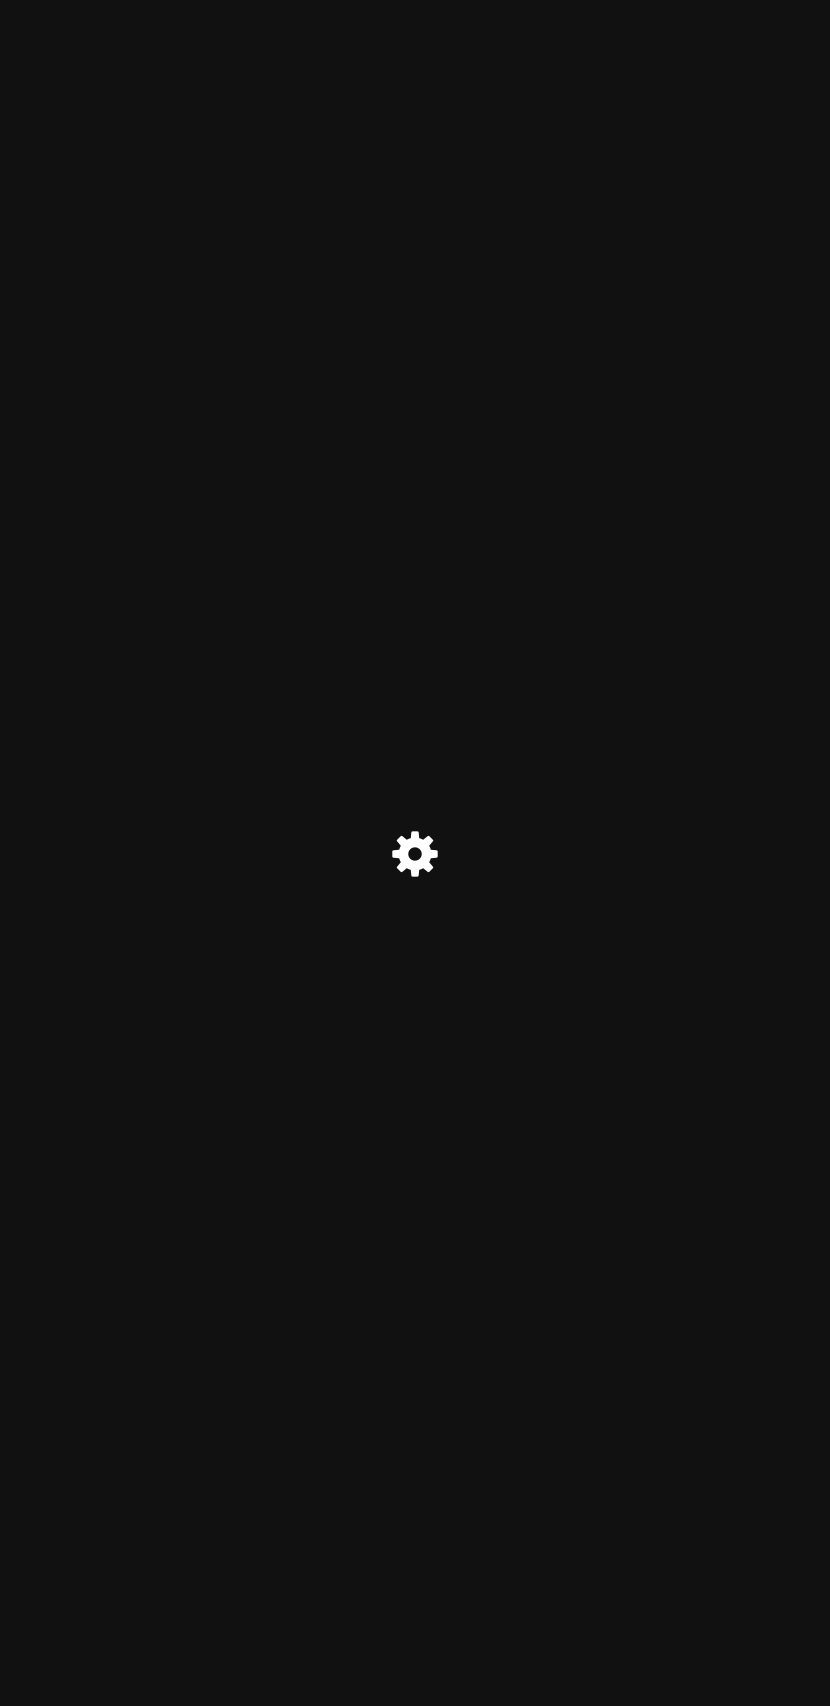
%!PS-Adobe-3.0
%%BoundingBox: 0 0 830 1706
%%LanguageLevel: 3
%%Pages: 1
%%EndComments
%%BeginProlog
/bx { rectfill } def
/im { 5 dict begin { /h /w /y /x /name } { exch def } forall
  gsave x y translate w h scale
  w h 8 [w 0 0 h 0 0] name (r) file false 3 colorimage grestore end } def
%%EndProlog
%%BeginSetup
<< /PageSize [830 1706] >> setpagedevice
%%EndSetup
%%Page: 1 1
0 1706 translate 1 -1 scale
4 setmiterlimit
0.067 setgray
0 0 830 1706 bx
(image0.raw) 392 831 46 46 im
showpage
%%EOF
